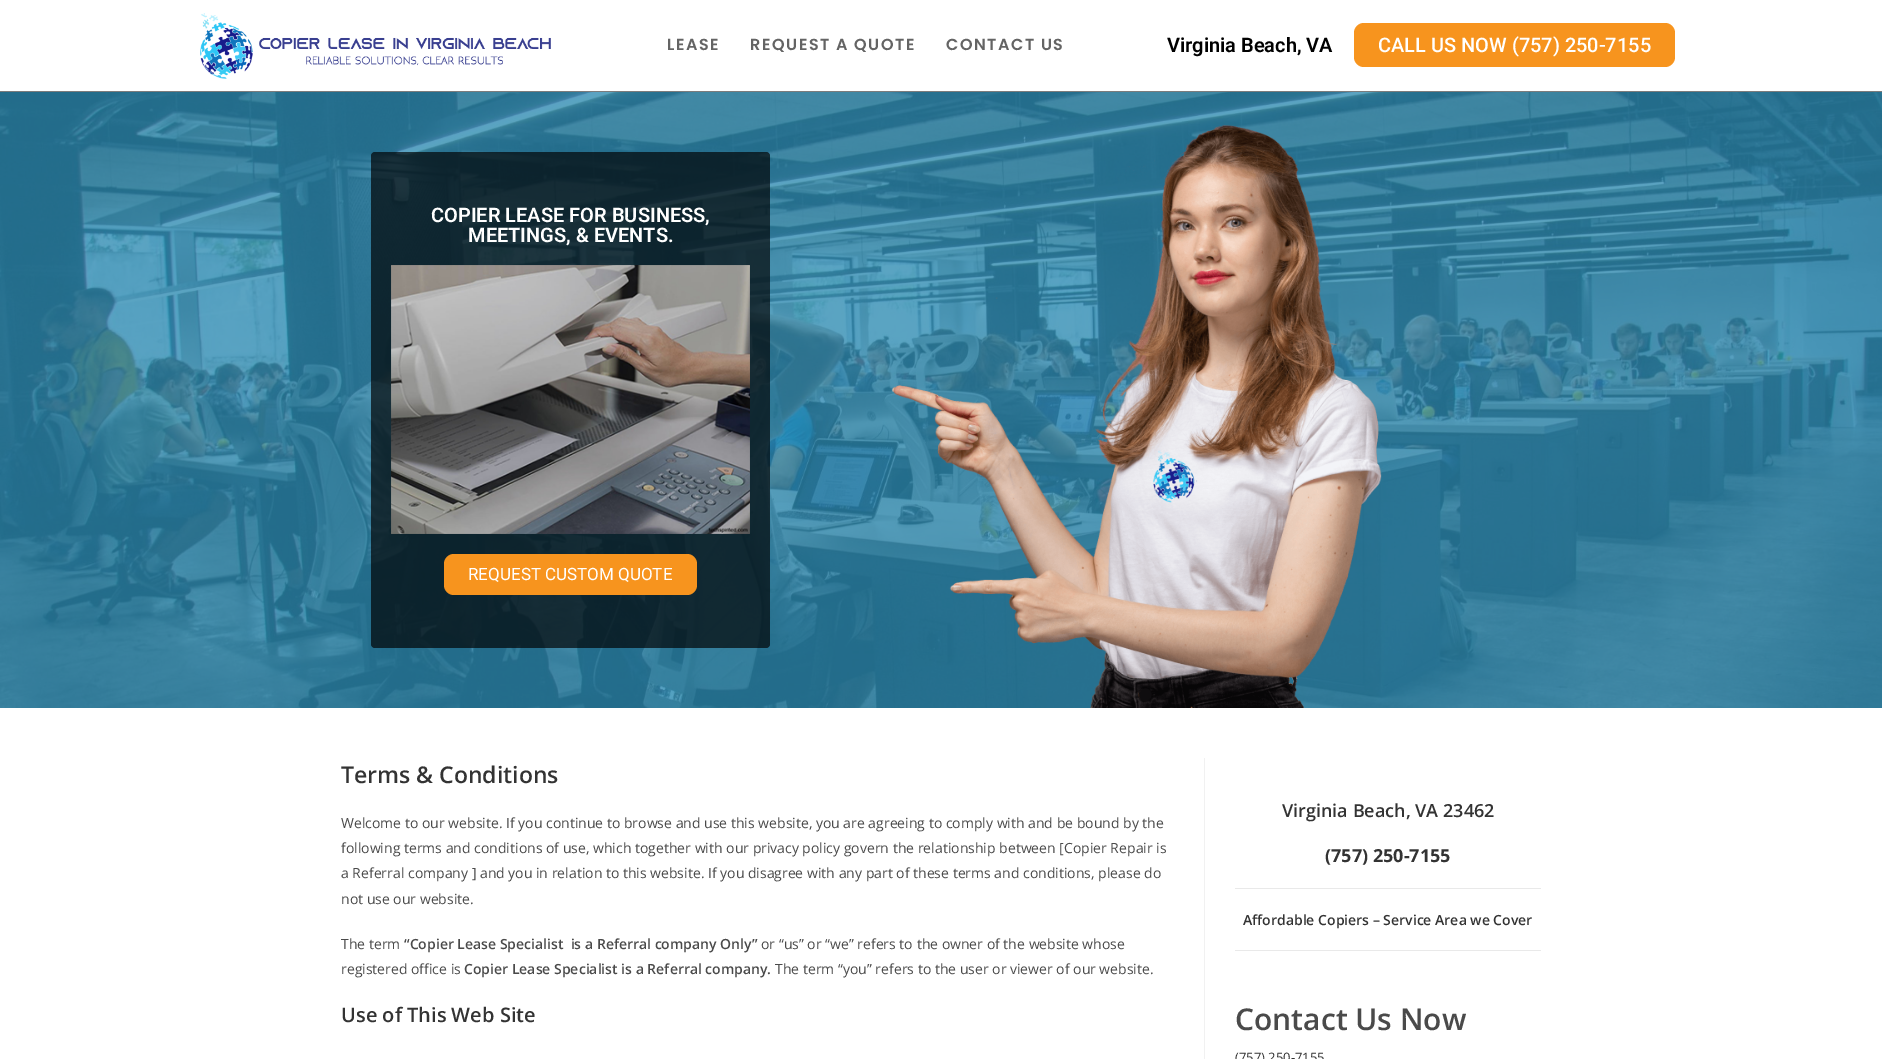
%!PS-Adobe-3.0
%%BoundingBox: 0 0 1882 1059
%%LanguageLevel: 3
%%Pages: 1
%%EndComments
%%BeginProlog
/m { moveto } bind def
/f { fill } bind def
/fn { [ exch dup neg 0 0 3 -1 roll 0 0 ] selectfont } def
/tx { moveto show } def
/bx { rectfill } def
/al { dup .setfillconstantalpha .setstrokeconstantalpha } def
/rr { 5 dict begin { /r /h /w /y /x } { exch def } forall
  x r add y moveto x w add y 2 copy h add r arct x w add y h add x 1 index r arct
  x y h add x y r arct x y 2 copy exch w add exch r arct closepath end } def
/im { 5 dict begin { /h /w /y /x /name } { exch def } forall
  gsave x y translate w h scale
  w h 8 [w 0 0 h 0 0] name (r) file false 3 colorimage grestore end } def
%%EndProlog
%%BeginSetup
<< /PageSize [1882 1059] /PageUsesTransparency true >> setpagedevice
%%EndSetup
%%Page: 1 1
0 .pushpdf14devicefilter
0 1059 translate 1 -1 scale
4 setmiterlimit
1 setgray
0 0 1882 1059 bx
0.486 setgray
0 91 1882 1 bx
(image0.raw) 200 13 351 66 im
/Poppins-SemiBold 16 fn
0.392 setgray
667 50 m 1.5 0 (LEASE) ashow
750 50 m 1.5 0 (REQUEST A QUOTE) ashow
946 50 m 1.5 0 (CONTACT US) ashow
/Roboto-SemiBold 20 fn
0 setgray
(Virginia Beach, VA) 1167 52 tx
0.969 0.58 0.118 setrgbcolor
1354 23 321 44 10 rr f
/Roboto-Medium 20 fn
1 setgray
(CALL US NOW \(757\) 250-7155) 1378 52 tx
(image1.raw) 0 92 1882 616 im
0.68 al
0 setgray
371 152 399 496 4 rr f
/Roboto-SemiBold 20 fn
1 al
1 setgray
(COPIER LEASE FOR BUSINESS,) 431 222 tx
(MEETINGS, & EVENTS.) 468 242 tx
(image2.raw) 391 265 359 269 im
0.969 0.58 0.118 setrgbcolor
444 554 253 41 10 rr f
/Roboto-Regular 17 fn
1 setgray
(REQUEST CUSTOM QUOTE) 468 580 tx
(image3.raw) 892 125 490 583 im
0.945 setgray
1204 758 1 301 bx
/OpenSans-SemiBold 23 fn
0.2 setgray
(Terms & Conditions) 341 783 tx
/OpenSans-Regular 14 fn
0.29 setgray
(Welcome to our website. If you continue to browse and use this website, you are agreeing to comply with and be bound by the) 341 828 tx
(following terms and conditions of use, which together with our privacy policy govern the relationship between [Copier Repair is) 341 853 tx
(a Referral company ] and you in relation to this website. If you disagree with any part of these terms and conditions, please do) 341 878 tx
(not use our website.) 341 904 tx
(The term) 341 949 tx
/OpenSans-SemiBold 14 fn
(“Copier Lease Specialist  is a Referral company Only”) 404 949 tx
/OpenSans-Regular 14 fn
(or “us” or “we” refers to the owner of the website whose) 761 949 tx
(registered office is) 341 974 tx
/OpenSans-SemiBold 14 fn
(Copier Lease Specialist is a Referral company.) 464 974 tx
/OpenSans-Regular 14 fn
(The term “you” refers to the user or viewer of our website.) 775 974 tx
/OpenSans-SemiBold 20 fn
0.2 setgray
(Use of This Web Site) 341 1022 tx
/OpenSans-SemiBold 18 fn
(Virginia Beach, VA 23462) 1282 817 tx
/OpenSans-Bold 18 fn
(\(757\) 250-7155) 1325 862 tx
0.914 setgray
1235 888 306 1 bx
/OpenSans-SemiBold 14 fn
0.2 setgray
(Affordable Copiers – Service Area we Cover) 1243 925 tx
0.914 setgray
1235 950 306 1 bx
/OpenSans-SemiBold 30 fn
0.29 setgray
(Contact Us Now) 1235 1030 tx
/OpenSans-Regular 13 fn
0.2 setgray
(\(757\) 250-7155) 1235 1062 tx
.poppdf14devicefilter showpage
%%EOF
